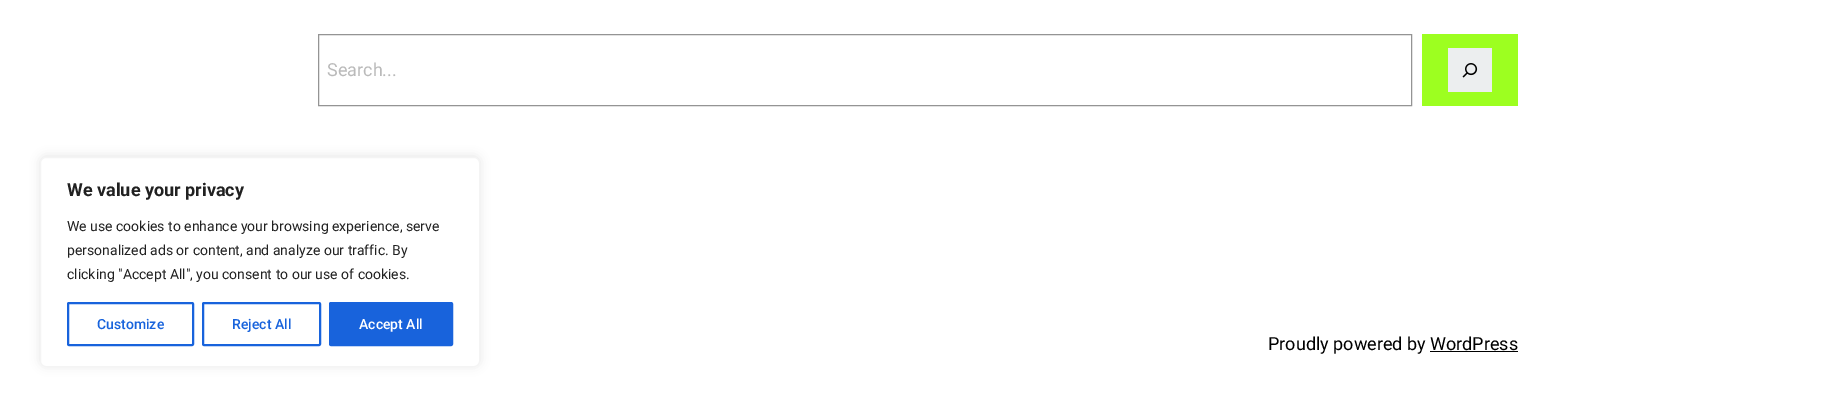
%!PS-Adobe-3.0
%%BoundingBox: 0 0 1836 407
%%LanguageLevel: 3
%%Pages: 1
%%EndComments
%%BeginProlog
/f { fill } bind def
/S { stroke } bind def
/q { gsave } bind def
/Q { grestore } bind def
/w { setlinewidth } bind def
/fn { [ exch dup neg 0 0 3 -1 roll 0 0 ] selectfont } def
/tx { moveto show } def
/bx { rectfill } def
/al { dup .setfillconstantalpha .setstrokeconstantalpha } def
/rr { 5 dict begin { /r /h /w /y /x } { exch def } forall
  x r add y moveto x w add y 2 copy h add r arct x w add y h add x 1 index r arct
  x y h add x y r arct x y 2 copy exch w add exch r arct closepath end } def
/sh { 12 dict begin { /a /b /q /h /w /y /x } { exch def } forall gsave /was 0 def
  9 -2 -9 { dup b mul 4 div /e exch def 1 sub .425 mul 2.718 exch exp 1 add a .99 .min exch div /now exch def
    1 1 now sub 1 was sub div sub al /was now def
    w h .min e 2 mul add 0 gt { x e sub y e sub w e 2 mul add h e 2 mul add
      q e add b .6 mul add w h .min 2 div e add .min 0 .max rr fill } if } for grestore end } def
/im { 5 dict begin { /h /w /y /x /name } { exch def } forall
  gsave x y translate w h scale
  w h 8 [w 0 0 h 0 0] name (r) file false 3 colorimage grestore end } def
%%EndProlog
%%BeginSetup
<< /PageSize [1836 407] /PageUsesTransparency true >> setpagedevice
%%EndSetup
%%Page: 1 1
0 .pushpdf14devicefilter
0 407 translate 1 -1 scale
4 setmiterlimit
1 setgray
0 0 1836 407 bx
0.675 0.671 0.671 setrgbcolor
40 156 440 210 6 5 0.3 sh
1 setgray
40.5 157.5 439 209 5.5 rr q f Q
0.957 setgray
S
/Roboto-Bold 18 fn
0.129 setgray
(We value your privacy) 67 196 tx
/Roboto-Regular 14 fn
(We use cookies to enhance your browsing experience, serve) 67 231 tx
(personalized ads or content, and analyze our traffic. By) 67 255 tx
(clicking "Accept All", you consent to our use of cookies.) 67 279 tx
0.094 0.388 0.863 setrgbcolor
2 w
68 303 125 42 1 rr S
/Roboto-Medium 14 fn
(Customize) 97 329 tx
203 303 117 42 1 rr S
(Reject All) 232 329 tx
330 303 122 42 1 rr q f Q
S
1 setgray
(Accept All) 359 329 tx
0.58 setgray
1 w
318.5 34.5 1093 71 rectstroke
/Roboto-Regular 18 fn
0.729 setgray
(Search...) 327 76 tx
0.616 1 0.125 setrgbcolor
1422 34 96 72 bx
0.925 0.933 0.937 setrgbcolor
1448 48 44 44 bx
(image0.raw) 1462 63 16 15 im
0 setgray
(Proudly powered by WordPress) 1268 350 tx
1430 351 88 1 bx
.poppdf14devicefilter showpage
%%EOF
